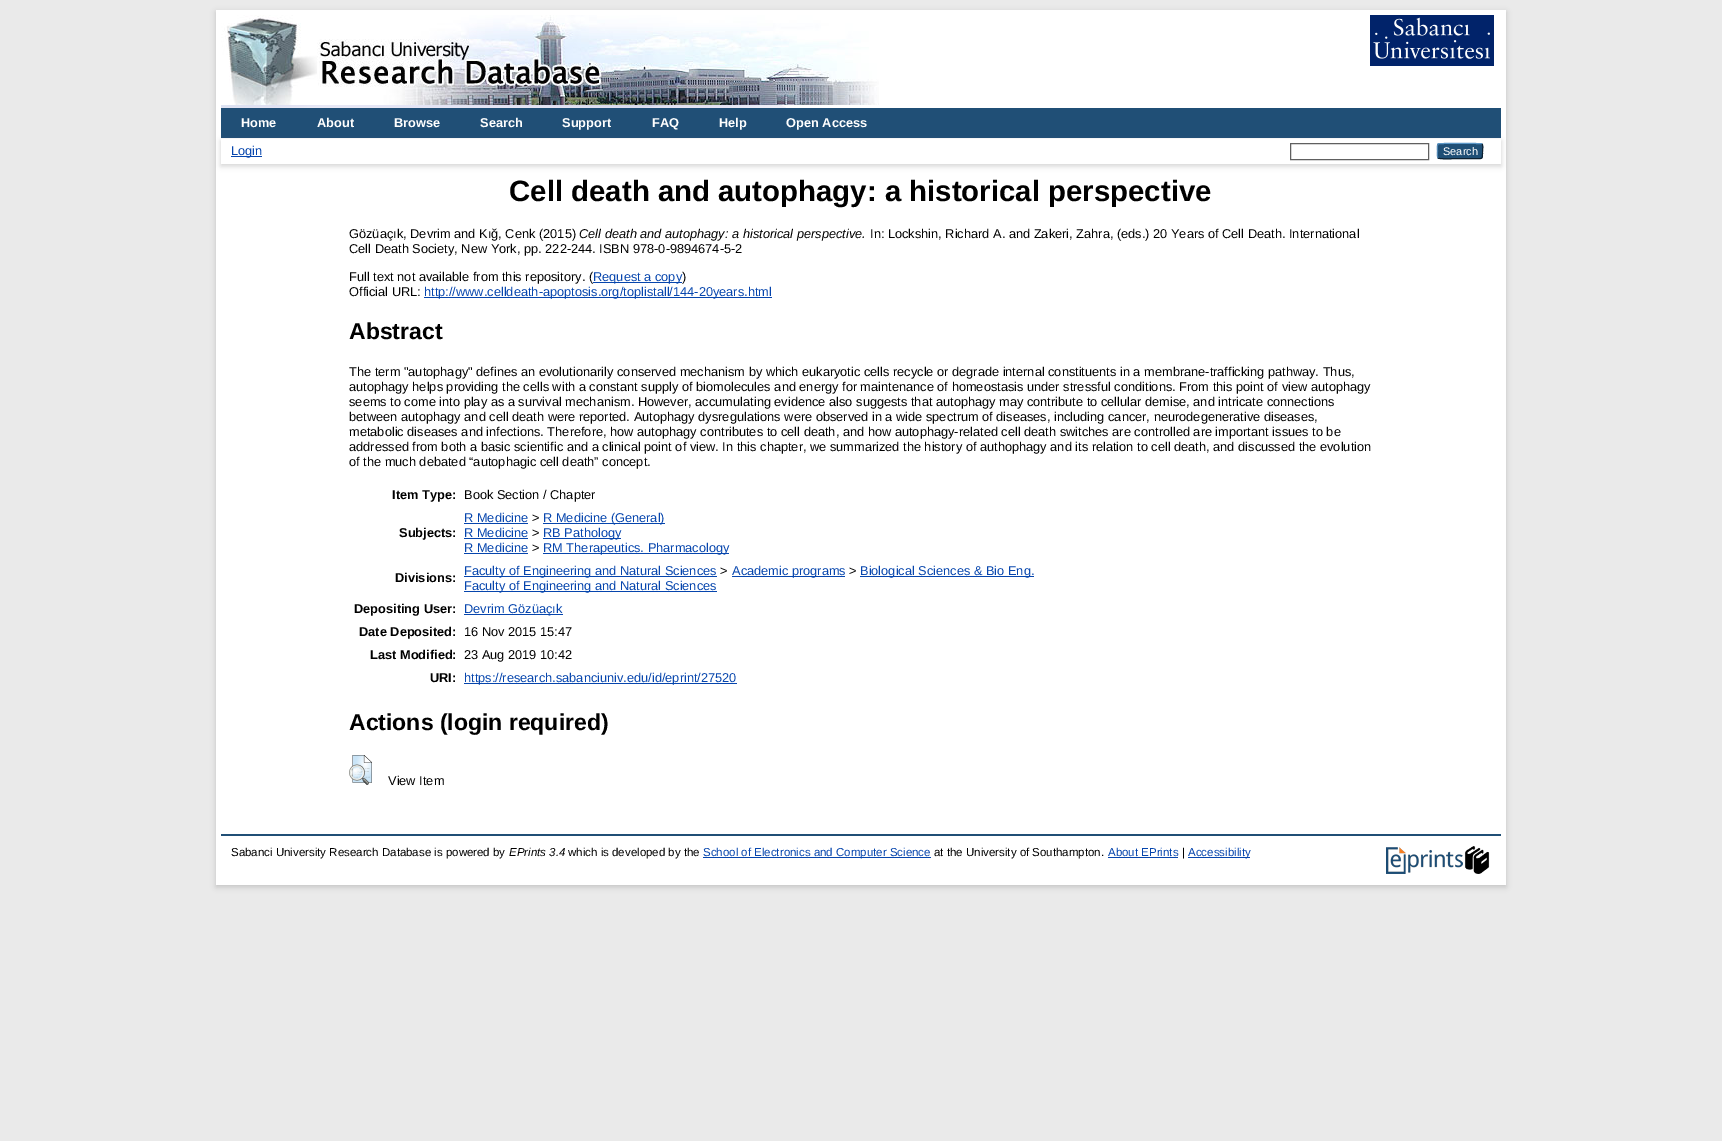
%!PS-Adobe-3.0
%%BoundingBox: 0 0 1722 1141
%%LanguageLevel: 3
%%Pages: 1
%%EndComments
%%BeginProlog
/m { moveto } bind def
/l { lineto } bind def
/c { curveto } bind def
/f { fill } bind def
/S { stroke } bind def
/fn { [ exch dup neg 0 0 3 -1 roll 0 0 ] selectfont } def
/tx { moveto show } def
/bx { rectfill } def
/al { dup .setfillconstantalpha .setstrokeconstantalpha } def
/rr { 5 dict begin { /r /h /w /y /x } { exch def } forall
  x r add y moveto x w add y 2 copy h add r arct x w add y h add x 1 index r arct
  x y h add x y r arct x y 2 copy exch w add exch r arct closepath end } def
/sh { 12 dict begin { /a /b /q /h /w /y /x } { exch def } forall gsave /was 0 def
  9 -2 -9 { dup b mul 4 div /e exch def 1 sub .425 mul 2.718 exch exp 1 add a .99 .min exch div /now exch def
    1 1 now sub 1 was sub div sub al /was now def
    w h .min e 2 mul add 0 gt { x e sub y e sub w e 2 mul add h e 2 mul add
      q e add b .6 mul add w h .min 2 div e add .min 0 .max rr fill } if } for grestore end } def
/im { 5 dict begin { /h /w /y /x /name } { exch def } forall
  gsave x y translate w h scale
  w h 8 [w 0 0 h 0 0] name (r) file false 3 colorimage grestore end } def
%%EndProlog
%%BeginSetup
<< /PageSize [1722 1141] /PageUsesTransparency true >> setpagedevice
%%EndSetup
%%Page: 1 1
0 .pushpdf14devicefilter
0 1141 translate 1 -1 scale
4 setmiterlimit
0.918 setgray
0 0 1722 1141 bx
0.392 setgray
216 12 1290 875 0 3 0.3 sh
1 setgray
216 10 1290 875 bx
(image0.raw) 221 105 565 3 im
(image1.raw) 221 15 658 90 im
(image2.raw) 1370 15 124 51 im
0.125 0.31 0.463 setrgbcolor
221 108 1280 30 bx
/LiberationSans-Bold 12.8 fn
1 setgray
(Home) 241 127 tx
(About) 317 127 tx
(Browse) 394 127 tx
(Search) 480 127 tx
(Support) 562 127 tx
(FAQ) 652 127 tx
(Help) 719 127 tx
(Open Access) 786 127 tx
0.392 setgray
221 141 1280 25 0 3 0.3 sh
1 setgray
221 139 1280 25 bx
0.024 0.271 0.678 setrgbcolor
231 156 31 1 bx
/LiberationSans-Regular 12.8 fn
(Login) 231 155 tx
0.376 setgray
1290.5 143.5 138 16 rectstroke
0.122 0.31 0.463 setrgbcolor
1437 143 46 16 3 rr f
0.357 0.592 0.78 setrgbcolor
1438 144 m 1439.5 143 1480.5 143 1482 144 c S
0.051 0.129 0.192 setrgbcolor
1482 144 m 1483.5 146 1482.5 149 1482.5 151 c 1482.5 160 1483 158.5 1473.5 158.5 c 1460 158.5 l 1456.5 158.5 1440 159.5 1438 158 c S
0.322 0.529 0.702 setrgbcolor
1438 158 m 1437 156.5 1437.5 152.5 1437.5 151 c 1437.5 149.5 1437 145.5 1438 144 c S
/LiberationSans-Regular 11 fn
1 setgray
(Search) 1443 155 tx
/LiberationSans-Bold 29.4 fn
0 setgray
(Cell death and autophagy: a historical perspective) 509 201 tx
/LiberationSans-Regular 12.8 fn
(Gözüaçık, Devrim and Kığ, Cenk \(2015\)) 349 238 tx
/LiberationSans-Italic 12.8 fn
(Cell death and autophagy: a historical perspective.) 579 238 tx
/LiberationSans-Regular 12.8 fn
(In: Lockshin, Richard A. and Zakeri, Zahra, \(eds.\) 20 Years of Cell Death. International) 870 238 tx
(Cell Death Society, New York, pp. 222-244. ISBN 978-0-9894674-5-2) 349 253 tx
(Full text not available from this repository. \() 349 281 tx
0.024 0.271 0.678 setrgbcolor
593 282 89 1 bx
(Request a copy) 593 281 tx
0 setgray
(\)) 682 281 tx
(Official URL:) 349 296 tx
0.024 0.271 0.678 setrgbcolor
424 297 348 1 bx
(http://www.celldeath-apoptosis.org/toplistall/144-20years.html) 424 296 tx
/LiberationSans-Bold 23 fn
0 setgray
(Abstract) 349 339 tx
/LiberationSans-Regular 12.8 fn
(The term "autophagy" defines an evolutionarily conserved mechanism by which eukaryotic cells recycle or degrade internal constituents in a membrane-trafficking pathway. Thus,) 349 376 tx
(autophagy helps providing the cells with a constant supply of biomolecules and energy for maintenance of homeostasis under stressful conditions. From this point of view autophagy) 349 391 tx
(seems to come into play as a survival mechanism. However, accumulating evidence also suggests that autophagy may contribute to cellular demise, and intricate connections) 349 406 tx
(between autophagy and cell death were reported. Autophagy dysregulations were observed in a wide spectrum of diseases, including cancer, neurodegenerative diseases,) 349 421 tx
(metabolic diseases and infections. Therefore, how autophagy contributes to cell death, and how autophagy-related cell death switches are controlled are important issues to be) 349 436 tx
(addressed from both a basic scientific and a clinical point of view. In this chapter, we summarized the history of authophagy and its relation to cell death, and discussed the evolution) 349 451 tx
(of the much debated “autophagic cell death” concept.) 349 466 tx
/LiberationSans-Bold 12.8 fn
(Item Type:) 392 499 tx
/LiberationSans-Regular 12.8 fn
(Book Section / Chapter) 464 499 tx
/LiberationSans-Bold 12.8 fn
(Subjects:) 399 537 tx
/LiberationSans-Regular 12.8 fn
0.024 0.271 0.678 setrgbcolor
(R Medicine) 464 522 tx
464 523 64 1 bx
0 setgray
(>) 532 522 tx
0.024 0.271 0.678 setrgbcolor
543 523 122 1 bx
(R Medicine \(General\)) 543 522 tx
(R Medicine) 464 537 tx
464 538 64 1 bx
0 setgray
(>) 532 537 tx
0.024 0.271 0.678 setrgbcolor
543 538 78 1 bx
(RB Pathology) 543 537 tx
(R Medicine) 464 552 tx
464 553 64 1 bx
0 setgray
(>) 532 552 tx
0.024 0.271 0.678 setrgbcolor
543 553 186 1 bx
(RM Therapeutics. Pharmacology) 543 552 tx
/LiberationSans-Bold 12.8 fn
0 setgray
(Divisions:) 395 582 tx
0.024 0.271 0.678 setrgbcolor
464 576 253 1 bx
/LiberationSans-Regular 12.8 fn
(Faculty of Engineering and Natural Sciences) 464 575 tx
0 setgray
(>) 720 575 tx
0.024 0.271 0.678 setrgbcolor
732 576 113 1 bx
(Academic programs) 732 575 tx
0 setgray
(>) 849 575 tx
0.024 0.271 0.678 setrgbcolor
860 576 174 1 bx
(Biological Sciences & Bio Eng.) 860 575 tx
464 591 253 1 bx
(Faculty of Engineering and Natural Sciences) 464 590 tx
/LiberationSans-Bold 12.8 fn
0 setgray
(Depositing User:) 354 613 tx
0.024 0.271 0.678 setrgbcolor
464 614 99 1 bx
/LiberationSans-Regular 12.8 fn
(Devrim Gözüaçık) 464 613 tx
/LiberationSans-Bold 12.8 fn
0 setgray
(Date Deposited:) 359 636 tx
/LiberationSans-Regular 12.8 fn
(16 Nov 2015 15:47) 464 636 tx
/LiberationSans-Bold 12.8 fn
(Last Modified:) 370 659 tx
/LiberationSans-Regular 12.8 fn
(23 Aug 2019 10:42) 464 659 tx
/LiberationSans-Bold 12.8 fn
(URI:) 430 682 tx
0.024 0.271 0.678 setrgbcolor
464 683 273 1 bx
/LiberationSans-Regular 12.8 fn
(https://research.sabanciuniv.edu/id/eprint/27520) 464 682 tx
/LiberationSans-Bold 23 fn
0 setgray
(Actions \(login required\)) 349 730 tx
(image3.raw) 349 755 23 30 im
/LiberationSans-Regular 12.8 fn
(View Item) 388 785 tx
0.125 0.31 0.463 setrgbcolor
221 834 1280 2 bx
/LiberationSans-Regular 11.5 fn
0 setgray
(Sabanci University Research Database is powered by) 231 856 tx
/LiberationSans-Italic 11.5 fn
(EPrints 3.4) 509 856 tx
/LiberationSans-Regular 11.5 fn
(which is developed by the) 568 856 tx
0.024 0.271 0.678 setrgbcolor
703 857 228 1 bx
(School of Electronics and Computer Science) 703 856 tx
0 setgray
(at the University of Southampton.) 934 856 tx
0.024 0.271 0.678 setrgbcolor
(About EPrints) 1108 856 tx
1108 857 70 1 bx
0 setgray
(|) 1182 856 tx
0.024 0.271 0.678 setrgbcolor
1188 857 62 1 bx
(Accessibility) 1188 856 tx
(image4.raw) 1386 847 77 27 im
(image5.raw) 1464 846 26 28 im
.poppdf14devicefilter showpage
%%EOF
